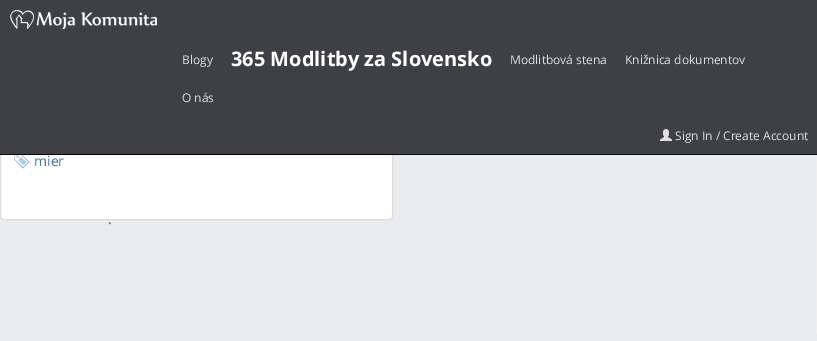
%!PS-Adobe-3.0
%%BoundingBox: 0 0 817 341
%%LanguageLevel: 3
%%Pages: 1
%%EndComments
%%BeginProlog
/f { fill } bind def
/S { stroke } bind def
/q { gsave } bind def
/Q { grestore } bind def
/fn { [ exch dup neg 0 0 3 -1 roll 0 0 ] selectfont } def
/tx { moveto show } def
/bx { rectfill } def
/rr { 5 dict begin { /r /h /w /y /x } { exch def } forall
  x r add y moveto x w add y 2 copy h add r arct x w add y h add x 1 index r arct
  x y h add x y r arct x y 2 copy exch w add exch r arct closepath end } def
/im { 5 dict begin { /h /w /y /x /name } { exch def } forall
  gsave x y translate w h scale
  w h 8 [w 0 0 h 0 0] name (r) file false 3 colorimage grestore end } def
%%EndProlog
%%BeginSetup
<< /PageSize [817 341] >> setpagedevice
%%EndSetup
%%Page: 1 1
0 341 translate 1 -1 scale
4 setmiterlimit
0.914 0.922 0.933 setrgbcolor
0 0 817 341 bx
1 setgray
0.5 -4.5 392 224 3.5 rr q f Q
0.867 setgray
S
0.243 0.251 0.263 setrgbcolor
0 0 817 154 bx
0.031 setgray
0 154 817 1 bx
(image0.raw) 10 10 147 19 im
/OpenSans-Regular 12 fn
0.878 setgray
(Blogy) 182 64 tx
/OpenSans-Bold 20 fn
1 setgray
(365 Modlitby za Slovensko) 231 66 tx
/OpenSans-Regular 12 fn
0.878 setgray
(Modlitbová stena) 510 64 tx
(Knižnica dokumentov) 625 64 tx
(O nás) 182 102 tx
(image1.raw) 660 129 12 12 im
(Sign In / Create Account) 675 140 tx
0.933 setgray
816 155 1 179 bx
(image2.raw) 14 155 16 14 im
/OpenSans-Regular 14 fn
0.2 0.478 0.718 setrgbcolor
(mier) 34 166 tx
0.333 setgray
(.) 108 224 tx
showpage
%%EOF
